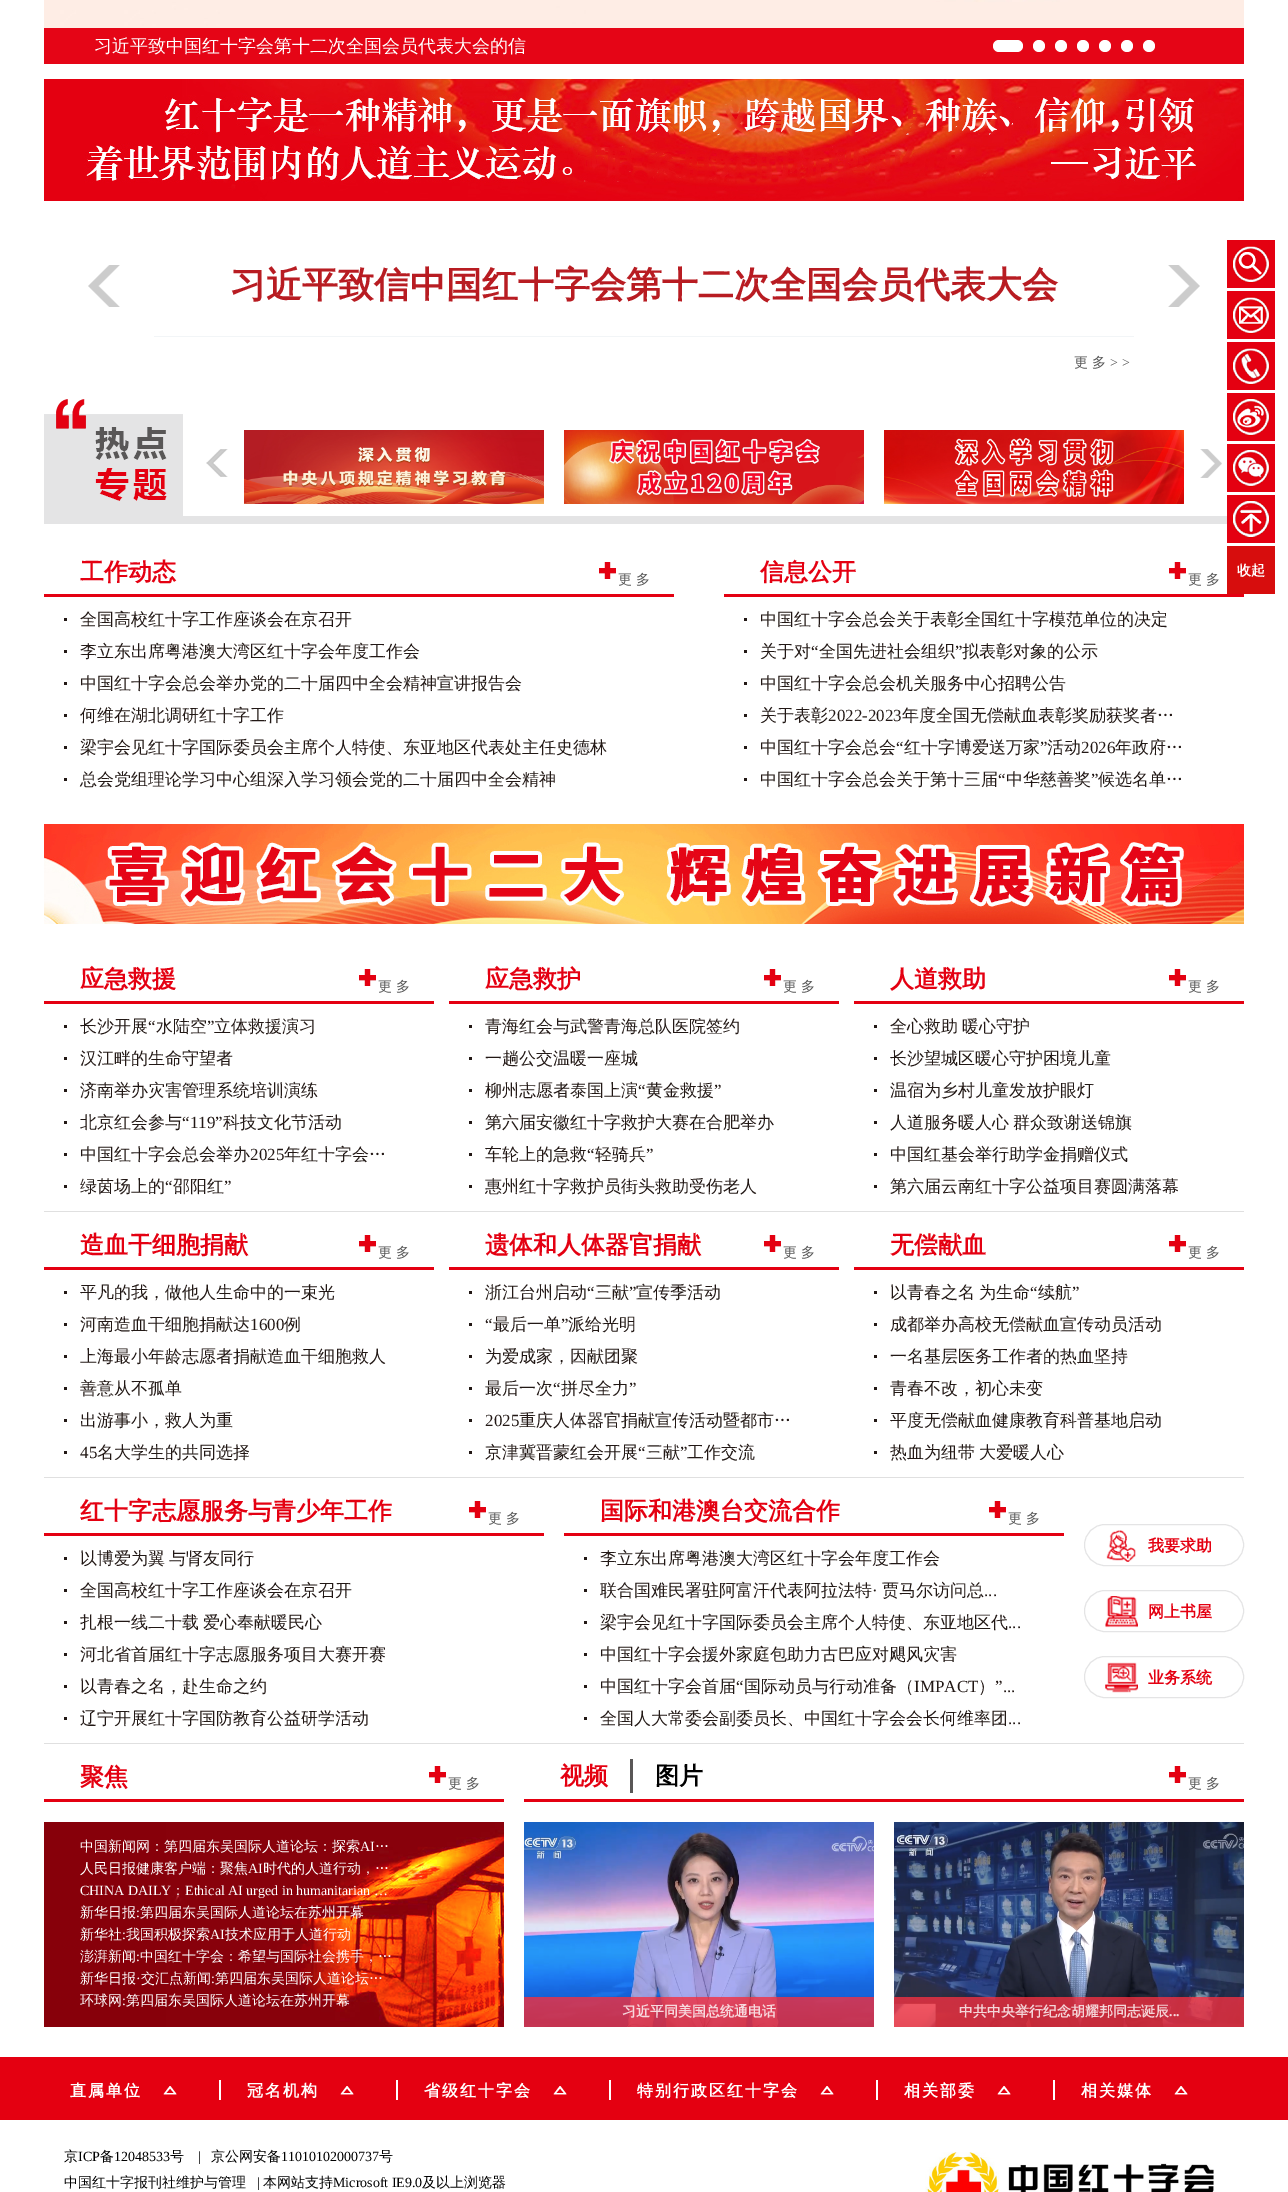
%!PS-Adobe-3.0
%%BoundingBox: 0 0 1288 2192
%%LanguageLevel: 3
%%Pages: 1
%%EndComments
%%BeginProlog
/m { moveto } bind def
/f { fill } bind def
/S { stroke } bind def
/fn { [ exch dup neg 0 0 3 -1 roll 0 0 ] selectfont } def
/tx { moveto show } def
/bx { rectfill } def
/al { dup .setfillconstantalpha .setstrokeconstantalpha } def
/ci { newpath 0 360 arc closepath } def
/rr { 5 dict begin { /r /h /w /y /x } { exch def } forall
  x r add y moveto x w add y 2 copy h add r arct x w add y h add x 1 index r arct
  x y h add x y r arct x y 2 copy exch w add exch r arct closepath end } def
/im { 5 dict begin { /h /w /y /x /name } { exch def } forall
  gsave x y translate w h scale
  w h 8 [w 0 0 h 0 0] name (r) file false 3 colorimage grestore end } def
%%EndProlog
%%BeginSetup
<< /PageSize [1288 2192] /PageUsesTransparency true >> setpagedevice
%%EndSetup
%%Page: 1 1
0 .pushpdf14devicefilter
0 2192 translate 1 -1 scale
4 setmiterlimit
1 setgray
0 0 1288 2192 bx
(image0.raw) 44 0 1200 28 im
0.898 0.02 0.086 setrgbcolor
44 28 1200 36 bx
/WenQuanYiZenHei-Medium 18 fn
1 setgray
(习近平致中国红十字会第十二次全国会员代表大会的信) 94 52 tx
993 40 30 12 6 rr f
1039 46 6 ci f
1061 46 6 ci f
1083 46 6 ci f
1105 46 6 ci f
1127 46 6 ci f
1149 46 6 ci f
(image1.raw) 44 79 1200 122 im
(image2.raw) 88 265 32 42 im
/WenQuanYiZenHei-Bold 36 fn
0.722 0.11 0.133 setrgbcolor
(习近平致信中国红十字会第十二次全国会员代表大会) 230 297 tx
0.949 0.961 0.969 setrgbcolor
154 336 980 1 bx
/WenQuanYiZenHei-Medium 14 fn
0.341 setgray
1074 367 m 4 0 (更多) ashow
/LiberationSerif-Regular 14 fn
1110 367 m 4 0 (>>) ashow
(image3.raw) 1168 265 32 42 im
(image4.raw) 44 399 139 117 im
0.894 0.894 0.898 setrgbcolor
44 516 1183 8 bx
(image5.raw) 206 449 22 28 im
(image6.raw) 244 430 300 74 im
(image7.raw) 564 430 300 74 im
(image8.raw) 884 430 300 74 im
(image9.raw) 1200 449 22 29 im
0.894 0 0.067 setrgbcolor
44 594 630 3 bx
/WenQuanYiZenHei-Bold 24 fn
(工作动态) 80 580 tx
(image10.raw) 599 562 17 17 im
/WenQuanYiZenHei-Medium 14 fn
0.341 setgray
618 584 m 4 0 (更多) ashow
0.133 0.094 0.082 setrgbcolor
64 618 3 3 bx
/WenQuanYiZenHei-Medium 17 fn
(全国高校红十字工作座谈会在京召开) 80 625 tx
64 650 3 3 bx
(李立东出席粤港澳大湾区红十字会年度工作会) 80 657 tx
64 682 3 3 bx
(中国红十字会总会举办党的二十届四中全会精神宣讲报告会) 80 689 tx
64 714 3 3 bx
(何维在湖北调研红十字工作) 80 721 tx
64 746 3 3 bx
(梁宇会见红十字国际委员会主席个人特使、东亚地区代表处主任史德林) 80 753 tx
64 778 3 3 bx
(总会党组理论学习中心组深入学习领会党的二十届四中全会精神) 80 785 tx
0.894 0 0.067 setrgbcolor
724 594 520 3 bx
/WenQuanYiZenHei-Bold 24 fn
(信息公开) 760 580 tx
(image10.raw) 1169 562 17 17 im
/WenQuanYiZenHei-Medium 14 fn
0.341 setgray
1188 584 m 4 0 (更多) ashow
0.133 0.094 0.082 setrgbcolor
744 618 3 3 bx
/WenQuanYiZenHei-Medium 17 fn
(中国红十字会总会关于表彰全国红十字模范单位的决定) 760 625 tx
744 650 3 3 bx
(关于对) 760 657 tx
/LiberationSerif-Regular 17 fn
(“) 811 657 tx
/WenQuanYiZenHei-Medium 17 fn
(全国先进社会组织) 819 657 tx
/LiberationSerif-Regular 17 fn
(”) 955 657 tx
/WenQuanYiZenHei-Medium 17 fn
(拟表彰对象的公示) 962 657 tx
744 682 3 3 bx
(中国红十字会总会机关服务中心招聘公告) 760 689 tx
744 714 3 3 bx
(关于表彰) 760 721 tx
/LiberationSerif-Regular 17 fn
(2022-2023) 828 721 tx
/WenQuanYiZenHei-Medium 17 fn
(年度全国无偿献血表彰奖励获奖者…) 902 721 tx
744 746 3 3 bx
(中国红十字会总会) 760 753 tx
/LiberationSerif-Regular 17 fn
(“) 896 753 tx
/WenQuanYiZenHei-Medium 17 fn
(红十字博爱送万家) 904 753 tx
/LiberationSerif-Regular 17 fn
(”) 1040 753 tx
/WenQuanYiZenHei-Medium 17 fn
(活动) 1047 753 tx
/LiberationSerif-Regular 17 fn
(2026) 1081 753 tx
/WenQuanYiZenHei-Medium 17 fn
(年政府…) 1115 753 tx
744 778 3 3 bx
(中国红十字会总会关于第十三届) 760 785 tx
/LiberationSerif-Regular 17 fn
(“) 998 785 tx
/WenQuanYiZenHei-Medium 17 fn
(中华慈善奖) 1006 785 tx
/LiberationSerif-Regular 17 fn
(”) 1091 785 tx
/WenQuanYiZenHei-Medium 17 fn
(候选名单…) 1098 785 tx
(image11.raw) 44 824 1200 100 im
0.878 setgray
44 1211 1200 1 bx
0.894 0 0.067 setrgbcolor
44 1001 390 3 bx
/WenQuanYiZenHei-Bold 24 fn
(应急救援) 80 987 tx
(image10.raw) 359 969 17 17 im
/WenQuanYiZenHei-Medium 14 fn
0.341 setgray
378 991 m 4 0 (更多) ashow
0.133 0.094 0.082 setrgbcolor
64 1025 3 3 bx
/WenQuanYiZenHei-Medium 17 fn
(长沙开展) 80 1032 tx
/LiberationSerif-Regular 17 fn
(“) 148 1032 tx
/WenQuanYiZenHei-Medium 17 fn
(水陆空) 156 1032 tx
/LiberationSerif-Regular 17 fn
(”) 207 1032 tx
/WenQuanYiZenHei-Medium 17 fn
(立体救援演习) 214 1032 tx
64 1057 3 3 bx
(汉江畔的生命守望者) 80 1064 tx
64 1089 3 3 bx
(济南举办灾害管理系统培训演练) 80 1096 tx
64 1121 3 3 bx
(北京红会参与) 80 1128 tx
/LiberationSerif-Regular 17 fn
(“119”) 182 1128 tx
/WenQuanYiZenHei-Medium 17 fn
(科技文化节活动) 223 1128 tx
64 1153 3 3 bx
(中国红十字会总会举办) 80 1160 tx
/LiberationSerif-Regular 17 fn
(2025) 250 1160 tx
/WenQuanYiZenHei-Medium 17 fn
(年红十字会…) 284 1160 tx
64 1185 3 3 bx
(绿茵场上的) 80 1192 tx
/LiberationSerif-Regular 17 fn
(“) 165 1192 tx
/WenQuanYiZenHei-Medium 17 fn
(邵阳红) 173 1192 tx
/LiberationSerif-Regular 17 fn
(”) 224 1192 tx
0.894 0 0.067 setrgbcolor
449 1001 390 3 bx
/WenQuanYiZenHei-Bold 24 fn
(应急救护) 485 987 tx
(image10.raw) 764 969 17 17 im
/WenQuanYiZenHei-Medium 14 fn
0.341 setgray
783 991 m 4 0 (更多) ashow
0.133 0.094 0.082 setrgbcolor
469 1025 3 3 bx
/WenQuanYiZenHei-Medium 17 fn
(青海红会与武警青海总队医院签约) 485 1032 tx
469 1057 3 3 bx
(一趟公交温暖一座城) 485 1064 tx
469 1089 3 3 bx
(柳州志愿者泰国上演) 485 1096 tx
/LiberationSerif-Regular 17 fn
(“) 638 1096 tx
/WenQuanYiZenHei-Medium 17 fn
(黄金救援) 646 1096 tx
/LiberationSerif-Regular 17 fn
(”) 714 1096 tx
469 1121 3 3 bx
/WenQuanYiZenHei-Medium 17 fn
(第六届安徽红十字救护大赛在合肥举办) 485 1128 tx
469 1153 3 3 bx
(车轮上的急救) 485 1160 tx
/LiberationSerif-Regular 17 fn
(“) 587 1160 tx
/WenQuanYiZenHei-Medium 17 fn
(轻骑兵) 595 1160 tx
/LiberationSerif-Regular 17 fn
(”) 646 1160 tx
469 1185 3 3 bx
/WenQuanYiZenHei-Medium 17 fn
(惠州红十字救护员街头救助受伤老人) 485 1192 tx
0.894 0 0.067 setrgbcolor
854 1001 390 3 bx
/WenQuanYiZenHei-Bold 24 fn
(人道救助) 890 987 tx
(image10.raw) 1169 969 17 17 im
/WenQuanYiZenHei-Medium 14 fn
0.341 setgray
1188 991 m 4 0 (更多) ashow
0.133 0.094 0.082 setrgbcolor
874 1025 3 3 bx
/WenQuanYiZenHei-Medium 17 fn
(全心救助) 890 1032 tx
(暖心守护) 962 1032 tx
874 1057 3 3 bx
(长沙望城区暖心守护困境儿童) 890 1064 tx
874 1089 3 3 bx
(温宿为乡村儿童发放护眼灯) 890 1096 tx
874 1121 3 3 bx
890 1128 m -1 0 32 (人道服务暖人心 群众致谢送锦旗) widthshow
874 1153 3 3 bx
(中国红基会举行助学金捐赠仪式) 890 1160 tx
874 1185 3 3 bx
(第六届云南红十字公益项目赛圆满落幕) 890 1192 tx
0.878 setgray
44 1477 1200 1 bx
0.894 0 0.067 setrgbcolor
44 1267 390 3 bx
/WenQuanYiZenHei-Bold 24 fn
(造血干细胞捐献) 80 1253 tx
(image10.raw) 359 1235 17 17 im
/WenQuanYiZenHei-Medium 14 fn
0.341 setgray
378 1257 m 4 0 (更多) ashow
0.133 0.094 0.082 setrgbcolor
64 1291 3 3 bx
/WenQuanYiZenHei-Medium 17 fn
(平凡的我，做他人生命中的一束光) 80 1298 tx
64 1323 3 3 bx
(河南造血干细胞捐献达) 80 1330 tx
/LiberationSerif-Regular 17 fn
(1600) 250 1330 tx
/WenQuanYiZenHei-Medium 17 fn
(例) 284 1330 tx
64 1355 3 3 bx
(上海最小年龄志愿者捐献造血干细胞救人) 80 1362 tx
64 1387 3 3 bx
(善意从不孤单) 80 1394 tx
64 1419 3 3 bx
(出游事小，救人为重) 80 1426 tx
64 1451 3 3 bx
/LiberationSerif-Regular 17 fn
(45) 80 1458 tx
/WenQuanYiZenHei-Medium 17 fn
(名大学生的共同选择) 97 1458 tx
0.894 0 0.067 setrgbcolor
449 1267 390 3 bx
/WenQuanYiZenHei-Bold 24 fn
(遗体和人体器官捐献) 485 1253 tx
(image10.raw) 764 1235 17 17 im
/WenQuanYiZenHei-Medium 14 fn
0.341 setgray
783 1257 m 4 0 (更多) ashow
0.133 0.094 0.082 setrgbcolor
469 1291 3 3 bx
/WenQuanYiZenHei-Medium 17 fn
(浙江台州启动) 485 1298 tx
/LiberationSerif-Regular 17 fn
(“) 587 1298 tx
/WenQuanYiZenHei-Medium 17 fn
(三献) 595 1298 tx
/LiberationSerif-Regular 17 fn
(”) 629 1298 tx
/WenQuanYiZenHei-Medium 17 fn
(宣传季活动) 636 1298 tx
469 1323 3 3 bx
/LiberationSerif-Regular 17 fn
(“) 485 1330 tx
/WenQuanYiZenHei-Medium 17 fn
(最后一单) 493 1330 tx
/LiberationSerif-Regular 17 fn
(”) 561 1330 tx
/WenQuanYiZenHei-Medium 17 fn
(派给光明) 568 1330 tx
469 1355 3 3 bx
(为爱成家，因献团聚) 485 1362 tx
469 1387 3 3 bx
(最后一次) 485 1394 tx
/LiberationSerif-Regular 17 fn
(“) 553 1394 tx
/WenQuanYiZenHei-Medium 17 fn
(拼尽全力) 561 1394 tx
/LiberationSerif-Regular 17 fn
(”) 629 1394 tx
469 1419 3 3 bx
(2025) 485 1426 tx
/WenQuanYiZenHei-Medium 17 fn
(重庆人体器官捐献宣传活动暨都市…) 519 1426 tx
469 1451 3 3 bx
(京津冀晋蒙红会开展) 485 1458 tx
/LiberationSerif-Regular 17 fn
(“) 638 1458 tx
/WenQuanYiZenHei-Medium 17 fn
(三献) 646 1458 tx
/LiberationSerif-Regular 17 fn
(”) 680 1458 tx
/WenQuanYiZenHei-Medium 17 fn
(工作交流) 687 1458 tx
0.894 0 0.067 setrgbcolor
854 1267 390 3 bx
/WenQuanYiZenHei-Bold 24 fn
(无偿献血) 890 1253 tx
(image10.raw) 1169 1235 17 17 im
/WenQuanYiZenHei-Medium 14 fn
0.341 setgray
1188 1257 m 4 0 (更多) ashow
0.133 0.094 0.082 setrgbcolor
874 1291 3 3 bx
/WenQuanYiZenHei-Medium 17 fn
890 1298 m -1 0 32 (以青春之名 为生命) widthshow
/LiberationSerif-Regular 17 fn
(“) 1030 1298 tx
/WenQuanYiZenHei-Medium 17 fn
(续航) 1038 1298 tx
/LiberationSerif-Regular 17 fn
(”) 1072 1298 tx
874 1323 3 3 bx
/WenQuanYiZenHei-Medium 17 fn
(成都举办高校无偿献血宣传动员活动) 890 1330 tx
874 1355 3 3 bx
(一名基层医务工作者的热血坚持) 890 1362 tx
874 1387 3 3 bx
(青春不改，初心未变) 890 1394 tx
874 1419 3 3 bx
(平度无偿献血健康教育科普基地启动) 890 1426 tx
874 1451 3 3 bx
890 1458 m -1 0 32 (热血为纽带 大爱暖人心) widthshow
0.878 setgray
44 1743 1200 1 bx
0.894 0 0.067 setrgbcolor
44 1533 500 3 bx
/WenQuanYiZenHei-Bold 24 fn
(红十字志愿服务与青少年工作) 80 1519 tx
(image10.raw) 469 1501 17 17 im
/WenQuanYiZenHei-Medium 14 fn
0.341 setgray
488 1523 m 4 0 (更多) ashow
0.133 0.094 0.082 setrgbcolor
64 1557 3 3 bx
/WenQuanYiZenHei-Medium 17 fn
(以博爱为翼) 80 1564 tx
(与肾友同行) 169 1564 tx
64 1589 3 3 bx
(全国高校红十字工作座谈会在京召开) 80 1596 tx
64 1621 3 3 bx
(扎根一线二十载) 80 1628 tx
(爱心奉献暖民心) 203 1628 tx
64 1653 3 3 bx
(河北省首届红十字志愿服务项目大赛开赛) 80 1660 tx
64 1685 3 3 bx
(以青春之名，赴生命之约) 80 1692 tx
64 1717 3 3 bx
(辽宁开展红十字国防教育公益研学活动) 80 1724 tx
0.894 0 0.067 setrgbcolor
564 1533 500 3 bx
/WenQuanYiZenHei-Bold 24 fn
(国际和港澳台交流合作) 600 1519 tx
(image10.raw) 989 1501 17 17 im
/WenQuanYiZenHei-Medium 14 fn
0.341 setgray
1008 1523 m 4 0 (更多) ashow
0.133 0.094 0.082 setrgbcolor
584 1557 3 3 bx
/WenQuanYiZenHei-Medium 17 fn
(李立东出席粤港澳大湾区红十字会年度工作会) 600 1564 tx
584 1589 3 3 bx
(联合国难民署驻阿富汗代表阿拉法特) 600 1596 tx
/LiberationSerif-Regular 17 fn
(·) 872 1596 tx
/WenQuanYiZenHei-Medium 17 fn
(贾马尔访问总) 882 1596 tx
/LiberationSerif-Regular 17 fn
(...) 984 1596 tx
584 1621 3 3 bx
/WenQuanYiZenHei-Medium 17 fn
(梁宇会见红十字国际委员会主席个人特使、东亚地区代) 600 1628 tx
/LiberationSerif-Regular 17 fn
(...) 1008 1628 tx
584 1653 3 3 bx
/WenQuanYiZenHei-Medium 17 fn
(中国红十字会援外家庭包助力古巴应对飓风灾害) 600 1660 tx
584 1685 3 3 bx
(中国红十字会首届) 600 1692 tx
/LiberationSerif-Regular 17 fn
(“) 736 1692 tx
/WenQuanYiZenHei-Medium 17 fn
(国际动员与行动准备（) 744 1692 tx
/LiberationSerif-Regular 17 fn
(IMPACT) 914 1692 tx
/WenQuanYiZenHei-Medium 17 fn
(）) 978 1692 tx
/LiberationSerif-Regular 17 fn
(”...) 995 1692 tx
584 1717 3 3 bx
/WenQuanYiZenHei-Medium 17 fn
(全国人大常委会副委员长、中国红十字会会长何维率团) 600 1724 tx
/LiberationSerif-Regular 17 fn
(...) 1008 1724 tx
0.894 0.894 0.898 setrgbcolor
1084.5 1524.5 159 41 20.5 rr S
(image12.raw) 1106 1530 30 32 im
/WenQuanYiZenHei-Bold 16 fn
0.894 0 0.067 setrgbcolor
(我要求助) 1148 1551 tx
0.894 0.894 0.898 setrgbcolor
1084.5 1590.5 159 41 20.5 rr S
(image13.raw) 1105 1596 33 32 im
0.894 0 0.067 setrgbcolor
(网上书屋) 1148 1617 tx
0.894 0.894 0.898 setrgbcolor
1084.5 1656.5 159 41 20.5 rr S
(image14.raw) 1105 1662 33 31 im
0.894 0 0.067 setrgbcolor
(业务系统) 1148 1683 tx
44 1799 460 3 bx
/WenQuanYiZenHei-Bold 24 fn
(聚焦) 80 1785 tx
(image15.raw) 44 1822 460 205 im
(image10.raw) 429 1766 17 17 im
/WenQuanYiZenHei-Medium 14 fn
0.341 setgray
448 1788 m 4 0 (更多) ashow
1 setgray
(中国新闻网：第四届东吴国际人道论坛：探索) 80 1851 tx
/LiberationSerif-Regular 14 fn
(AI) 360 1851 tx
/WenQuanYiZenHei-Medium 14 fn
(…) 375 1851 tx
(人民日报健康客户端：聚焦) 80 1873 tx
/LiberationSerif-Regular 14 fn
(AI) 248 1873 tx
/WenQuanYiZenHei-Medium 14 fn
(时代的人道行动，…) 263 1873 tx
/LiberationSerif-Regular 14 fn
(CHINA DAILY) 80 1895 tx
/WenQuanYiZenHei-Medium 14 fn
(：) 171 1895 tx
/LiberationSerif-Regular 14 fn
(Ethical AI urged in humanitarian …) 185 1895 tx
/WenQuanYiZenHei-Medium 14 fn
(新华日报) 80 1917 tx
/LiberationSerif-Regular 14 fn
(:) 136 1917 tx
/WenQuanYiZenHei-Medium 14 fn
(第四届东吴国际人道论坛在苏州开幕) 140 1917 tx
(新华社) 80 1939 tx
/LiberationSerif-Regular 14 fn
(:) 122 1939 tx
/WenQuanYiZenHei-Medium 14 fn
(我国积极探索) 126 1939 tx
/LiberationSerif-Regular 14 fn
(AI) 210 1939 tx
/WenQuanYiZenHei-Medium 14 fn
(技术应用于人道行动) 225 1939 tx
(澎湃新闻) 80 1961 tx
/LiberationSerif-Regular 14 fn
(:) 136 1961 tx
/WenQuanYiZenHei-Medium 14 fn
(中国红十字会：希望与国际社会携手，…) 140 1961 tx
(新华日报) 80 1983 tx
/LiberationSerif-Regular 14 fn
(·) 136 1983 tx
/WenQuanYiZenHei-Medium 14 fn
(交汇点新闻) 141 1983 tx
/LiberationSerif-Regular 14 fn
(:) 211 1983 tx
/WenQuanYiZenHei-Medium 14 fn
(第四届东吴国际人道论坛…) 215 1983 tx
(环球网) 80 2005 tx
/LiberationSerif-Regular 14 fn
(:) 122 2005 tx
/WenQuanYiZenHei-Medium 14 fn
(第四届东吴国际人道论坛在苏州开幕) 126 2005 tx
0.894 0 0.067 setrgbcolor
524 1799 720 3 bx
0.349 0.341 0.341 setrgbcolor
630 1759 3 34 bx
/WenQuanYiZenHei-Bold 24 fn
0.894 0 0.067 setrgbcolor
(视频) 560 1784 tx
0 setgray
(图片) 655 1784 tx
(image10.raw) 1169 1766 17 17 im
/WenQuanYiZenHei-Medium 14 fn
0.341 setgray
1188 1788 m 4 0 (更多) ashow
(image16.raw) 524 1822 350 205 im
0.8 al
0.949 0.188 0.255 setrgbcolor
524 1997 350 30 bx
/WenQuanYiZenHei-Bold 14 fn
1 al
0.969 0.851 0.871 setrgbcolor
(习近平同美国总统通电话) 622 2016 tx
(image17.raw) 894 1822 350 205 im
0.8 al
0.949 0.188 0.255 setrgbcolor
894 1997 350 30 bx
1 al
0.957 0.835 0.847 setrgbcolor
(中共中央举行纪念胡耀邦同志诞辰) 959 2016 tx
/LiberationSerif-Bold 14 fn
0.969 0.851 0.871 setrgbcolor
(...) 1169 2016 tx
(image18.raw) 1227 240 48 48 im
(image19.raw) 1227 291 48 48 im
(image20.raw) 1227 342 48 48 im
(image21.raw) 1227 393 48 48 im
(image22.raw) 1227 444 48 48 im
(image23.raw) 1227 495 48 48 im
0.843 0.051 0.051 setrgbcolor
1227 546 48 48 bx
/WenQuanYiZenHei-Bold 14 fn
1 setgray
(收起) 1237 575 tx
0.894 0 0.067 setrgbcolor
0 2057 1288 63 bx
(image24.raw) 163 2086 14 9 im
/WenQuanYiZenHei-Bold 16 fn
1 setgray
70 2096 m 2 0 (直属单位) ashow
219 2080 2 20 bx
(image24.raw) 340 2086 14 9 im
247 2096 m 2 0 (冠名机构) ashow
396 2080 2 20 bx
(image24.raw) 553 2086 14 9 im
424 2096 m 2 0 (省级红十字会) ashow
609 2080 2 20 bx
(image24.raw) 820 2086 14 9 im
637 2096 m 2 0 (特别行政区红十字会) ashow
876 2080 2 20 bx
(image24.raw) 997 2086 14 9 im
904 2096 m 2 0 (相关部委) ashow
1053 2080 2 20 bx
(image24.raw) 1174 2086 14 9 im
1081 2096 m 2 0 (相关媒体) ashow
/WenQuanYiZenHei-Medium 14 fn
0 setgray
(京) 64 2161 tx
/LiberationSerif-Regular 14 fn
(ICP) 78 2161 tx
/WenQuanYiZenHei-Medium 14 fn
(备) 100 2161 tx
/LiberationSerif-Regular 14 fn
(12048533) 114 2161 tx
/WenQuanYiZenHei-Medium 14 fn
(号) 170 2161 tx
/LiberationSerif-Regular 14 fn
(|) 198 2161 tx
/WenQuanYiZenHei-Medium 14 fn
(京公网安备) 211 2161 tx
/LiberationSerif-Regular 14 fn
(11010102000737) 281 2161 tx
/WenQuanYiZenHei-Medium 14 fn
(号) 379 2161 tx
(中国红十字报刊社维护与管理) 64 2187 tx
/LiberationSerif-Regular 14 fn
(|) 257 2187 tx
/WenQuanYiZenHei-Medium 14 fn
(本网站支持) 263 2187 tx
/LiberationSerif-Regular 14 fn
(Microsoft IE9.0) 333 2187 tx
/WenQuanYiZenHei-Medium 14 fn
(及以上浏览器) 422 2187 tx
(image25.raw) 925 2152 289 40 im
.poppdf14devicefilter showpage
%%EOF
